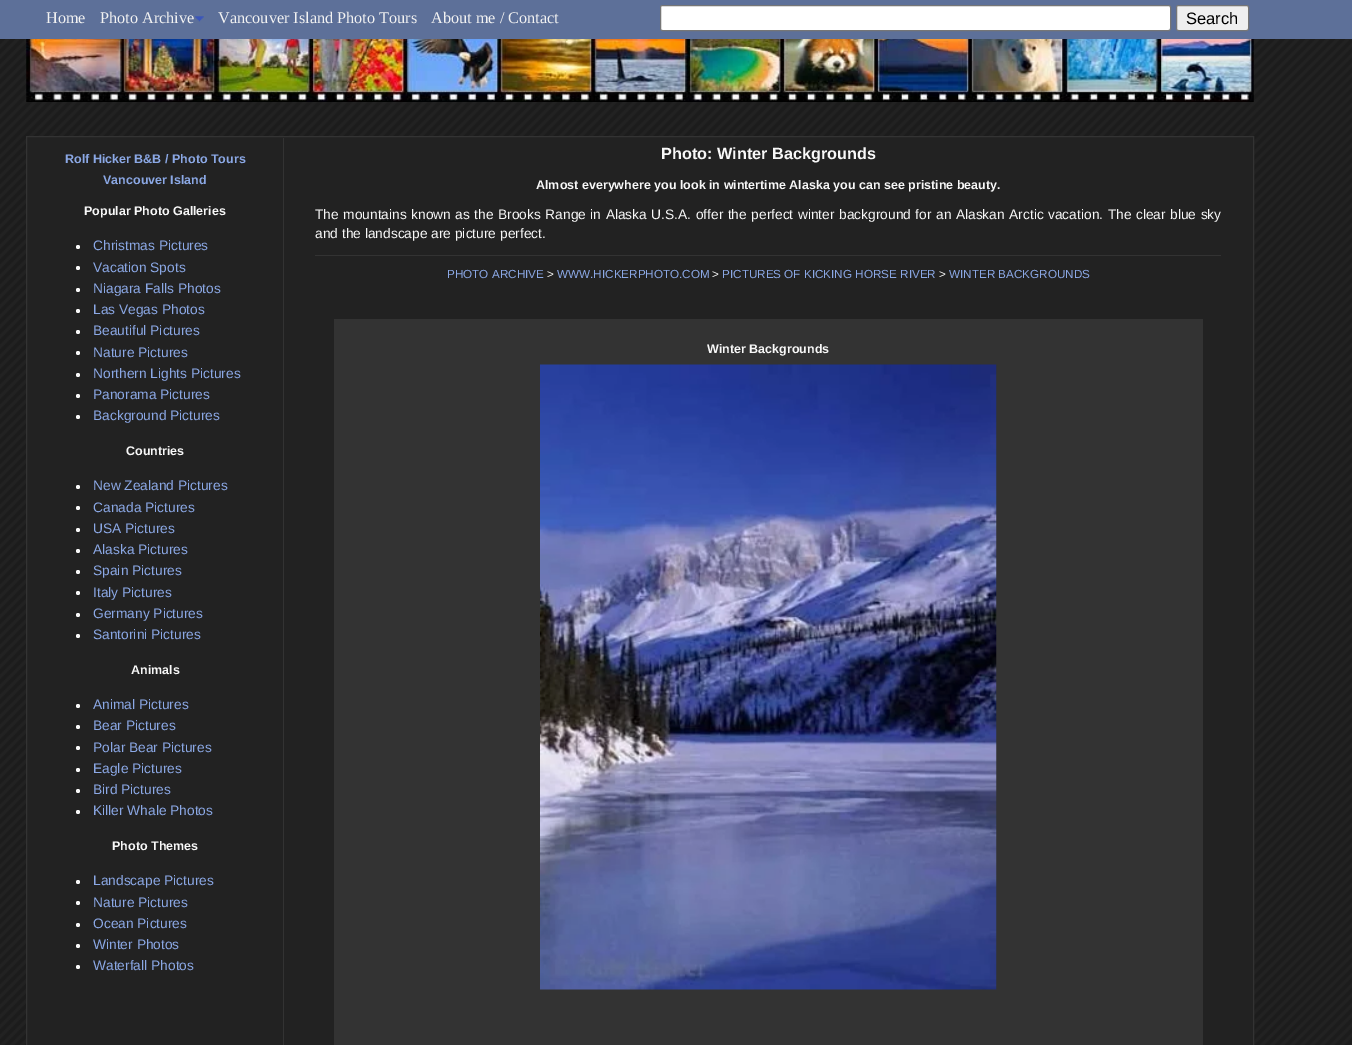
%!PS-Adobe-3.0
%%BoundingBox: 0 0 1352 1045
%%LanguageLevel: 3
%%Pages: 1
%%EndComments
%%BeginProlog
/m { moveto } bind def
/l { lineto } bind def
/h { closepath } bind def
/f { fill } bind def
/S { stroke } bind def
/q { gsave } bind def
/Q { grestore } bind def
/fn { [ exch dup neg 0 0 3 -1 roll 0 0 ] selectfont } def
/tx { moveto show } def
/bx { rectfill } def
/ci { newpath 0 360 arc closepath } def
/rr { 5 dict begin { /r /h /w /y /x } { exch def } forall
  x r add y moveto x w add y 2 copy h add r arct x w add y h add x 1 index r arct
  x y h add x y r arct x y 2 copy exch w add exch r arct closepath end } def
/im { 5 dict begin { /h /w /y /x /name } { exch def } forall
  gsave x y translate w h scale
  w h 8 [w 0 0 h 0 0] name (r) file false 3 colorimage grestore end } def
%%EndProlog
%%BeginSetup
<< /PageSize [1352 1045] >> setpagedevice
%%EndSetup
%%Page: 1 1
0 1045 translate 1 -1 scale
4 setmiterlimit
1 setgray
0 0 1352 1045 bx
(image0.raw) 0 39 1352 1006 im
0.365 0.439 0.6 setrgbcolor
0 0 1352 39 bx
/LiberationSerif-Regular 16.25 fn
0.949 setgray
(Home) 46 23 tx
(image1.raw) 195 16 9 6 im
(Photo Archive) 100 23 tx
(Vancouver Island Photo Tours) 218 23 tx
(About me / Contact) 431 23 tx
1 setgray
660.5 5.5 510 25 2 rr q f Q
0.463 setgray
S
0.937 setgray
1176.5 5.5 72 25 2 rr q f Q
0.463 setgray
S
/LiberationSans-Regular 16.5 fn
0 setgray
(Search) 1186 24 tx
(image2.raw) 26 39 1228 63 im
0.133 setgray
26.5 136.5 m 1253.5 136.5 l 1253.5 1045.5 l 26.5 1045.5 l h q f Q
0.2 setgray
S
/LiberationSans-Bold 12.5 fn
0.545 0.659 0.898 setrgbcolor
(Rolf Hicker B&B / Photo Tours) 65 163 tx
(Vancouver Island) 103 184 tx
0.973 setgray
(Popular Photo Galleries) 84 215 tx
78 247 2 ci f
/LiberationSans-Regular 13.75 fn
0.545 0.659 0.898 setrgbcolor
(Christmas Pictures) 93 250 tx
0.973 setgray
78 268 2 ci f
0.545 0.659 0.898 setrgbcolor
(Vacation Spots) 93 272 tx
0.973 setgray
78 290 2 ci f
0.545 0.659 0.898 setrgbcolor
(Niagara Falls Photos) 93 293 tx
0.973 setgray
78 311 2 ci f
0.545 0.659 0.898 setrgbcolor
(Las Vegas Photos) 93 314 tx
0.973 setgray
78 332 2 ci f
0.545 0.659 0.898 setrgbcolor
(Beautiful Pictures) 93 335 tx
0.973 setgray
78 353 2 ci f
0.545 0.659 0.898 setrgbcolor
(Nature Pictures) 93 357 tx
0.973 setgray
78 375 2 ci f
0.545 0.659 0.898 setrgbcolor
(Northern Lights Pictures) 93 378 tx
0.973 setgray
78 396 2 ci f
0.545 0.659 0.898 setrgbcolor
(Panorama Pictures) 93 399 tx
0.973 setgray
78 417 2 ci f
0.545 0.659 0.898 setrgbcolor
(Background Pictures) 93 420 tx
/LiberationSans-Bold 12.5 fn
0.973 setgray
(Countries) 126 455 tx
78 487 2 ci f
/LiberationSans-Regular 13.75 fn
0.545 0.659 0.898 setrgbcolor
(New Zealand Pictures) 93 490 tx
0.973 setgray
78 508 2 ci f
0.545 0.659 0.898 setrgbcolor
(Canada Pictures) 93 512 tx
0.973 setgray
78 530 2 ci f
0.545 0.659 0.898 setrgbcolor
(USA Pictures) 93 533 tx
0.973 setgray
78 551 2 ci f
0.545 0.659 0.898 setrgbcolor
(Alaska Pictures) 93 554 tx
0.973 setgray
78 572 2 ci f
0.545 0.659 0.898 setrgbcolor
(Spain Pictures) 93 575 tx
0.973 setgray
78 593 2 ci f
0.545 0.659 0.898 setrgbcolor
(Italy Pictures) 93 597 tx
0.973 setgray
78 615 2 ci f
0.545 0.659 0.898 setrgbcolor
(Germany Pictures) 93 618 tx
0.973 setgray
78 636 2 ci f
0.545 0.659 0.898 setrgbcolor
(Santorini Pictures) 93 639 tx
/LiberationSans-Bold 12.5 fn
0.973 setgray
(Animals) 131 674 tx
78 706 2 ci f
/LiberationSans-Regular 13.75 fn
0.545 0.659 0.898 setrgbcolor
(Animal Pictures) 93 709 tx
0.973 setgray
78 727 2 ci f
0.545 0.659 0.898 setrgbcolor
(Bear Pictures) 93 730 tx
0.973 setgray
78 748 2 ci f
0.545 0.659 0.898 setrgbcolor
(Polar Bear Pictures) 93 752 tx
0.973 setgray
78 770 2 ci f
0.545 0.659 0.898 setrgbcolor
(Eagle Pictures) 93 773 tx
0.973 setgray
78 791 2 ci f
0.545 0.659 0.898 setrgbcolor
(Bird Pictures) 93 794 tx
0.973 setgray
78 812 2 ci f
0.545 0.659 0.898 setrgbcolor
(Killer Whale Photos) 93 815 tx
/LiberationSans-Bold 12.5 fn
0.973 setgray
(Photo Themes) 112 850 tx
78 882 2 ci f
/LiberationSans-Regular 13.75 fn
0.545 0.659 0.898 setrgbcolor
(Landscape Pictures) 93 885 tx
0.973 setgray
78 903 2 ci f
0.545 0.659 0.898 setrgbcolor
(Nature Pictures) 93 907 tx
0.973 setgray
78 925 2 ci f
0.545 0.659 0.898 setrgbcolor
(Ocean Pictures) 93 928 tx
0.973 setgray
78 946 2 ci f
0.545 0.659 0.898 setrgbcolor
(Winter Photos) 93 949 tx
0.973 setgray
78 967 2 ci f
0.545 0.659 0.898 setrgbcolor
(Waterfall Photos) 93 970 tx
0.2 setgray
283 138 1 907 bx
/LiberationSans-Bold 16.25 fn
0.973 setgray
(Photo: Winter Backgrounds) 661 159 tx
/LiberationSans-Bold 12.5 fn
(Almost everywhere you look in wintertime Alaska you can see pristine beauty.) 536 189 tx
/LiberationSans-Regular 13.75 fn
315 219 m 0.7 0 32 (The mountains known as the Brooks Range in Alaska U.S.A. offer the perfect winter background for an Alaskan Arctic vacation. The clear blue sky) widthshow
(and the landscape are picture perfect.) 315 238 tx
0.2 setgray
315 255 906 1 bx
/LiberationSans-Regular 11.7 fn
0.545 0.659 0.898 setrgbcolor
(PHOTO ARCHIVE) 447 278 tx
0.973 setgray
(>) 547 278 tx
0.545 0.659 0.898 setrgbcolor
(WWW.HICKERPHOTO.COM) 557 278 tx
0.973 setgray
(>) 712 278 tx
0.545 0.659 0.898 setrgbcolor
(PICTURES OF KICKING HORSE RIVER) 722 278 tx
0.973 setgray
(>) 939 278 tx
0.545 0.659 0.898 setrgbcolor
(WINTER BACKGROUNDS) 949 278 tx
0.2 setgray
334 319 869 726 bx
/LiberationSans-Bold 12.5 fn
0.973 setgray
(Winter Backgrounds) 707 353 tx
(image3.raw) 540 364 457 626 im
showpage
%%EOF
